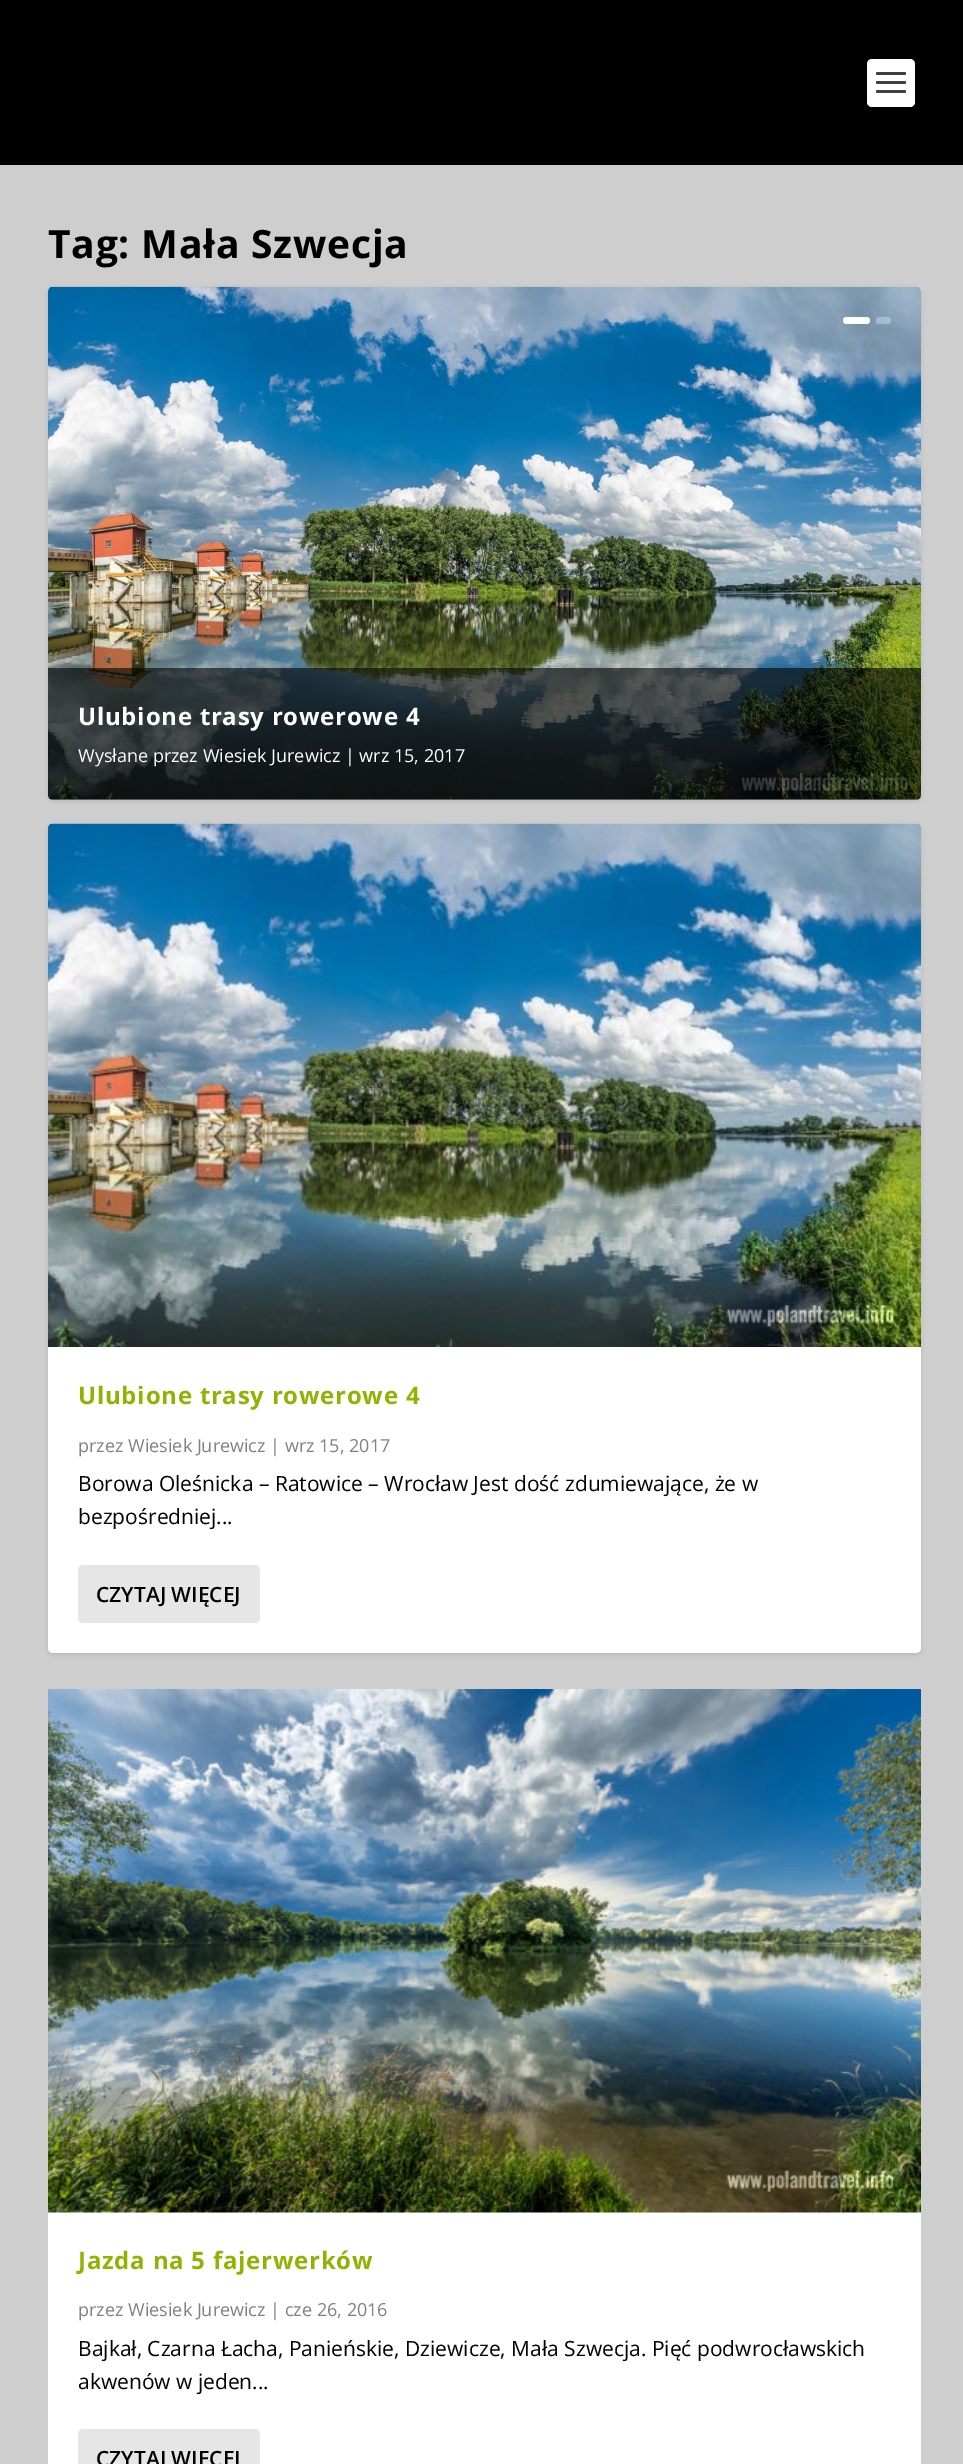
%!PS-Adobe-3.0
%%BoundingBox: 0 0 963 2464
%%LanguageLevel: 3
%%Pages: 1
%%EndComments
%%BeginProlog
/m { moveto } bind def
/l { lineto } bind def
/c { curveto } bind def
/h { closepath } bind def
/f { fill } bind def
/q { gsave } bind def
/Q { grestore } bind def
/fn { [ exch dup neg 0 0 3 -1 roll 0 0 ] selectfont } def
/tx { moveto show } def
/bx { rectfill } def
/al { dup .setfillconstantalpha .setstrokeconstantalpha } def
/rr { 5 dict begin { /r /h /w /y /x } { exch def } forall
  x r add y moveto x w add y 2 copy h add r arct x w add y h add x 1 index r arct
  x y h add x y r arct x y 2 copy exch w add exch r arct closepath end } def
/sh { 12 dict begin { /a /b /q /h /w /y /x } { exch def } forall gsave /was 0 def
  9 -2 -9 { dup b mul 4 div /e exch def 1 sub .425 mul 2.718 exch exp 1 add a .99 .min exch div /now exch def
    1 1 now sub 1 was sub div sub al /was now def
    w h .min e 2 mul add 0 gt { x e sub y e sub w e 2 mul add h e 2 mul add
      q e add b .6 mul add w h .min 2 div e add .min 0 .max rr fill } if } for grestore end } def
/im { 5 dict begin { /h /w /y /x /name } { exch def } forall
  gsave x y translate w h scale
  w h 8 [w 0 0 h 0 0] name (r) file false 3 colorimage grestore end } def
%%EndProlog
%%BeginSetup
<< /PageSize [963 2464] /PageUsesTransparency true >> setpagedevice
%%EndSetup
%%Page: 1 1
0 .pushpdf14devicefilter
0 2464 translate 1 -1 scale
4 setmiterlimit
0.808 setgray
0 0 963 2464 bx
0 setgray
0 0 963 165 bx
1 setgray
867 59 48 48 5 rr f
0.251 setgray
876 72 30 3 1.5 rr f
876 81 30 3 1.5 rr f
876 90 30 3 1.5 rr f
/OpenSans-Bold 39 fn
0 setgray
48 258 m 0.75 0 (Tag: Mała Szwecja) ashow
48 288 873 513 5 2 0.1 sh
1 setgray
48 287 873 513 5 rr f
(image0.raw) 48 286 873 514 im
843 317 27 7 3.5 rr f
0.3 al
876 317 15 7 3.5 rr f
0.6 al
0 setgray
48 668 m 921 668 l 921 795 l 921 798 919 800 916 800 c 53 800 l 50 800 48 798 48 795 c h f
/OpenSans-Bold 24 fn
1 al
1 setgray
78 725 m 0.75 0 (Ulubione trasy rowerowe 4) ashow
/OpenSans-Regular 18 fn
(Wysłane przez Wiesiek Jurewicz | wrz 15, 2017) 78 762 tx
q
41 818 m 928 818 l 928 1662 l 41 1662 l h 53 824 m 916 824 l 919 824 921 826 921 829 c 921 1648 l 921 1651 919 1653 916 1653 c 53 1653 l 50 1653 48 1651 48 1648 c 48 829 l 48 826 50 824 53 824 c h eoclip newpath
0 setgray
48 825 873 830 5 2 0.1 sh
Q
48 824 873 829 5 rr f
(image1.raw) 48 823 873 524 im
/OpenSans-Bold 24 fn
0.569 0.698 0 setrgbcolor
78 1404 m 0.75 0 (Ulubione trasy rowerowe 4) ashow
/OpenSans-Regular 18 fn
0.502 setgray
(przez Wiesiek Jurewicz | wrz 15, 2017) 78 1452 tx
/OpenSans-Regular 21 fn
0 setgray
(Borowa Oleśnicka – Ratowice – Wrocław Jest dość zdumiewające, że w) 78 1491 tx
(bezpośredniej...) 78 1524 tx
0.902 setgray
78 1565 182 58 5 rr f
/OpenSans-SemiBold 21 fn
0 setgray
(CZYTAJ WIĘCEJ) 96 1602 tx
1 setgray
48 2212 873 252 bx
(image2.raw) 48 1689 873 524 im
/OpenSans-Bold 24 fn
0.569 0.698 0 setrgbcolor
78 2269 m 0.75 0 (Jazda na 5 fajerwerków) ashow
/OpenSans-Regular 18 fn
0.502 setgray
(przez Wiesiek Jurewicz | cze 26, 2016) 78 2316 tx
/OpenSans-Regular 21 fn
0 setgray
(Bajkał, Czarna Łacha, Panieńskie, Dziewicze, Mała Szwecja. Pięć podwrocławskich) 78 2356 tx
(akwenów w jeden...) 78 2389 tx
0.902 setgray
78 2429 182 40 5 rr f
/OpenSans-SemiBold 21 fn
0 setgray
(CZYTAJ WIĘCEJ) 96 2466 tx
.poppdf14devicefilter showpage
%%EOF
